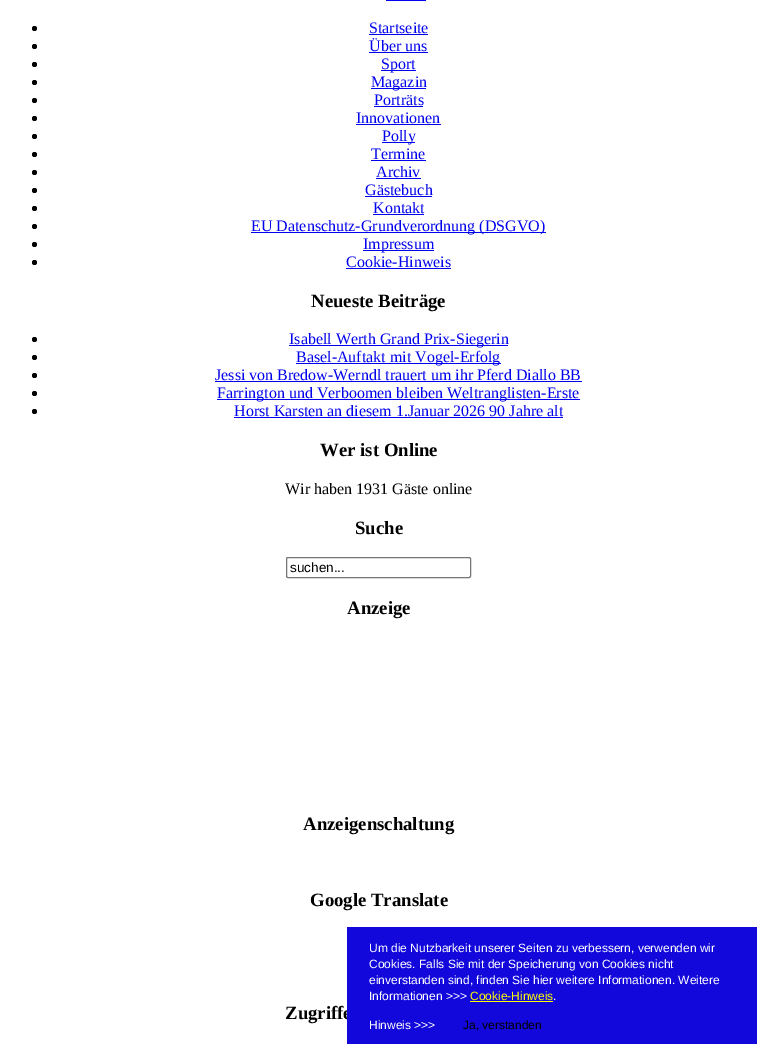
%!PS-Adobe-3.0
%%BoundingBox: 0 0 757 1044
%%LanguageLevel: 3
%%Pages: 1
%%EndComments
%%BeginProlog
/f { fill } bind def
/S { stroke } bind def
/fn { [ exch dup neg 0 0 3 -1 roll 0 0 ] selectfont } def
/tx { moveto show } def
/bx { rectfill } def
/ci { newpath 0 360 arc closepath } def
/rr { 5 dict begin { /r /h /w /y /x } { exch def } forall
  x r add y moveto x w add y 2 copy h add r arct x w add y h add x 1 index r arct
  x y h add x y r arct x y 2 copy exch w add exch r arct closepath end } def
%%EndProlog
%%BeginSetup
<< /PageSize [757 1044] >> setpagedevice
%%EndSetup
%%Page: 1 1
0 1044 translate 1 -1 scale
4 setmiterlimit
1 setgray
0 0 757 1044 bx
0 0 0.933 setrgbcolor
386 0 40 1 bx
0 setgray
34.5 28.5 2.5 ci f
/LiberationSerif-Regular 16 fn
0 0 0.933 setrgbcolor
(Startseite) 369 33 tx
369 34 59 1 bx
0 setgray
34.5 46.5 2.5 ci f
0 0 0.933 setrgbcolor
(Über uns) 369 51 tx
369 52 59 1 bx
0 setgray
34.5 64.5 2.5 ci f
0 0 0.933 setrgbcolor
381 70 35 1 bx
(Sport) 381 69 tx
0 setgray
34.5 82.5 2.5 ci f
0 0 0.933 setrgbcolor
371 88 55 1 bx
(Magazin) 371 87 tx
0 setgray
34.5 100.5 2.5 ci f
0 0 0.933 setrgbcolor
(Porträts) 374 105 tx
374 106 49 1 bx
0 setgray
34.5 118.5 2.5 ci f
0 0 0.933 setrgbcolor
(Innovationen) 356 123 tx
356 124 85 1 bx
0 setgray
34.5 136.5 2.5 ci f
0 0 0.933 setrgbcolor
382 142 33 1 bx
(Polly) 382 141 tx
0 setgray
34.5 154.5 2.5 ci f
0 0 0.933 setrgbcolor
(Termine) 371 159 tx
371 160 55 1 bx
0 setgray
34.5 172.5 2.5 ci f
0 0 0.933 setrgbcolor
(Archiv) 376 177 tx
376 178 45 1 bx
0 setgray
34.5 190.5 2.5 ci f
0 0 0.933 setrgbcolor
(Gästebuch) 365 195 tx
365 196 67 1 bx
0 setgray
34.5 208.5 2.5 ci f
0 0 0.933 setrgbcolor
(Kontakt) 373 213 tx
373 214 51 1 bx
0 setgray
34.5 226.5 2.5 ci f
0 0 0.933 setrgbcolor
251 232 295 1 bx
(EU Datenschutz-Grundverordnung \(DSGVO\)) 251 231 tx
0 setgray
34.5 244.5 2.5 ci f
0 0 0.933 setrgbcolor
363 250 71 1 bx
(Impressum) 363 249 tx
0 setgray
34.5 262.5 2.5 ci f
0 0 0.933 setrgbcolor
(Cookie-Hinweis) 346 267 tx
346 268 105 1 bx
/LiberationSerif-Bold 18.75 fn
0 setgray
(Neueste Beiträge) 311 307 tx
34.5 339.5 2.5 ci f
0 0 0.933 setrgbcolor
289 345 219 1 bx
/LiberationSerif-Regular 16 fn
(Isabell Werth Grand Prix-Siegerin) 289 344 tx
0 setgray
34.5 357.5 2.5 ci f
0 0 0.933 setrgbcolor
296 363 205 1 bx
(Basel-Auftakt mit Vogel-Erfolg) 296 362 tx
0 setgray
34.5 375.5 2.5 ci f
0 0 0.933 setrgbcolor
(Jessi von Bredow-Werndl trauert um ihr Pferd Diallo BB) 215 380 tx
215 381 367 1 bx
0 setgray
34.5 393.5 2.5 ci f
0 0 0.933 setrgbcolor
217 399 363 1 bx
(Farrington und Verboomen bleiben Weltranglisten-Erste) 217 398 tx
0 setgray
34.5 411.5 2.5 ci f
0 0 0.933 setrgbcolor
(Horst Karsten an diesem 1.Januar 2026 90 Jahre alt) 234 416 tx
234 417 329 1 bx
/LiberationSerif-Bold 18.75 fn
0 setgray
(Wer ist Online) 320 456 tx
/LiberationSerif-Regular 16 fn
(Wir haben 1931 Gäste online) 285 494 tx
/LiberationSerif-Bold 18.75 fn
(Suche) 355 534 tx
0.463 setgray
286.5 557.5 184 20 1.5 rr S
/LiberationSans-Regular 13.5 fn
0 setgray
(suchen...) 290 572 tx
/LiberationSerif-Bold 18.75 fn
(Anzeige) 347 614 tx
(Anzeigenschaltung) 303 830 tx
(Google Translate) 310 906 tx
(Zugriffe) 285 1019 tx
0.075 0.031 0.859 setrgbcolor
347 927 410 117 bx
/LiberationSans-Regular 12 fn
1 setgray
(Um die Nutzbarkeit unserer Seiten zu verbessern, verwenden wir) 369 952 tx
(Cookies. Falls Sie mit der Speicherung von Cookies nicht) 369 968 tx
(einverstanden sind, finden Sie hier weitere Informationen. Weitere) 369 984 tx
(Informationen >>>) 369 1000 tx
1 1 0 setrgbcolor
(Cookie-Hinweis) 470 1000 tx
470 1001 83 1 bx
1 setgray
(.) 553 1000 tx
(Hinweis >>>) 369 1029 tx
0 setgray
(Ja, verstanden) 463 1029 tx
showpage
%%EOF
